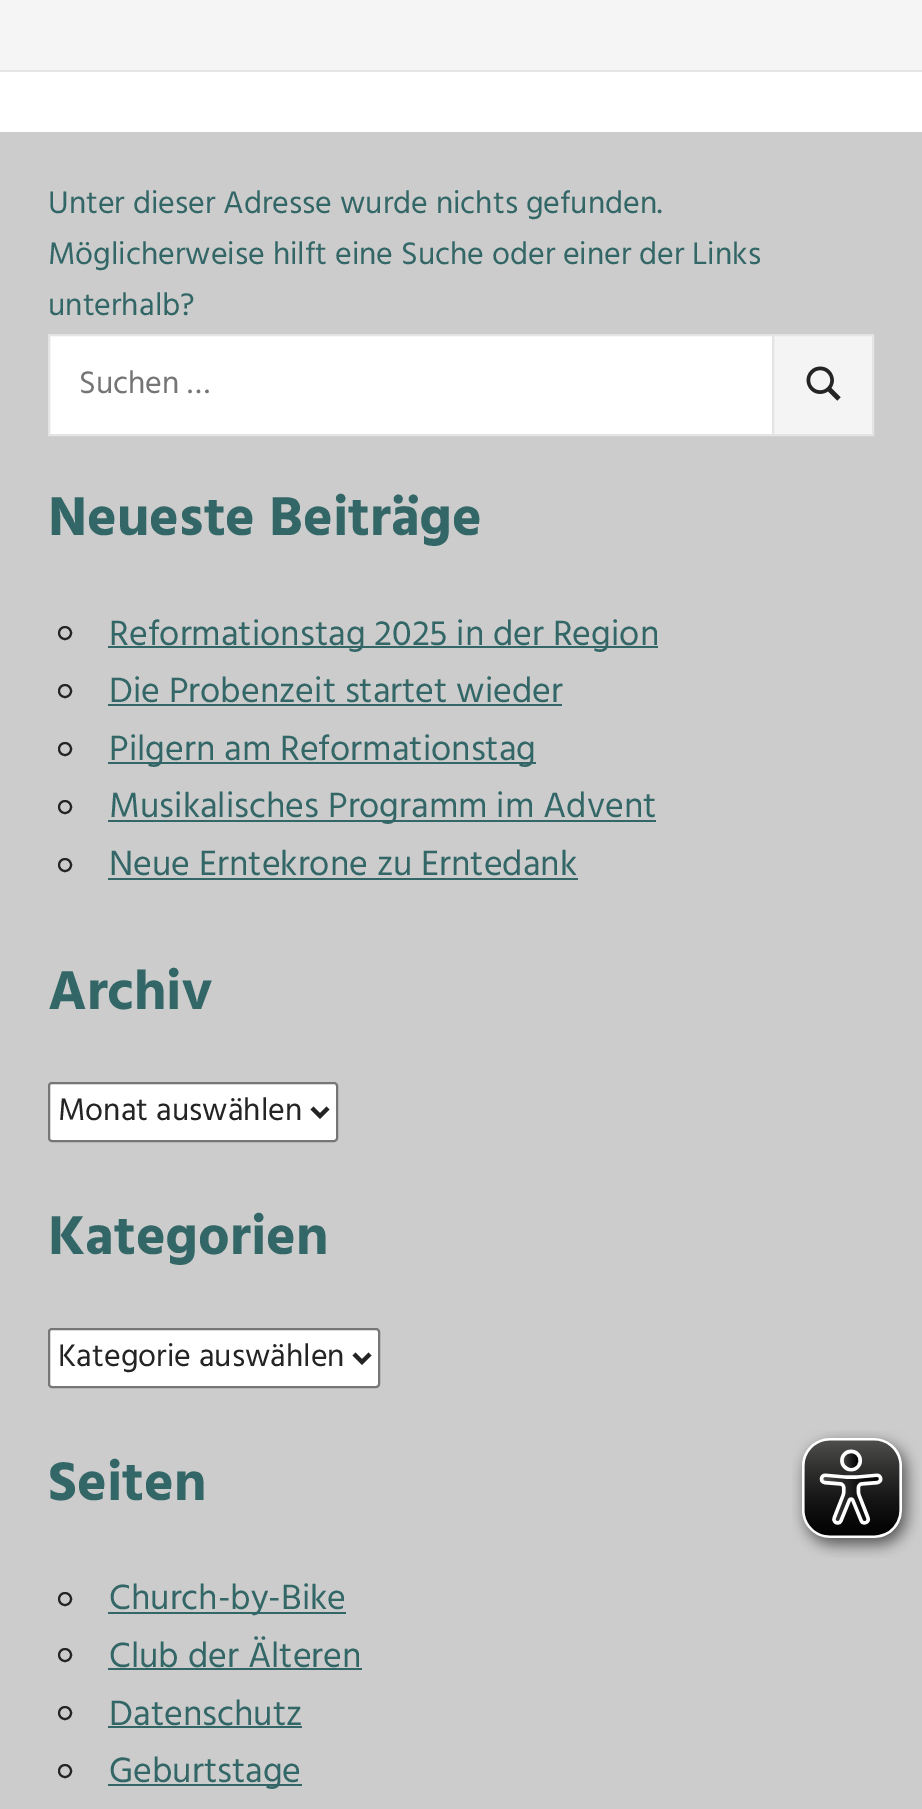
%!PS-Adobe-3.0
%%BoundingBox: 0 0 922 1809
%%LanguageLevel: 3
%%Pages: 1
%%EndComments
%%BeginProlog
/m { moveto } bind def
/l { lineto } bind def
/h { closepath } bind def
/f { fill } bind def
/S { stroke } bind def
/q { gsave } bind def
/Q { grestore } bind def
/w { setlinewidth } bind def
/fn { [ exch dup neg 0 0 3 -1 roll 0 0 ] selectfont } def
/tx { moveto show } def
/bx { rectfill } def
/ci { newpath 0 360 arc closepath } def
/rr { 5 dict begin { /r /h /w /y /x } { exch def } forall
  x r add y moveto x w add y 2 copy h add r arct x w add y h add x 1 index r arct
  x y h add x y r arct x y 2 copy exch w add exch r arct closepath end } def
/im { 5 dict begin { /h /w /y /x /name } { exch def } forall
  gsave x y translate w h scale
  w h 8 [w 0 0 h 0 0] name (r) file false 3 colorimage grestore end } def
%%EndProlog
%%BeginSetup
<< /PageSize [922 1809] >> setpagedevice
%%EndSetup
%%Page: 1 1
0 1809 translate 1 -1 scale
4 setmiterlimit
1 setgray
0 0 922 1809 bx
0.961 setgray
0 0 922 70 bx
0.898 setgray
0 70 922 2 bx
0.8 setgray
0 132 922 1677 bx
/Hind-Regular 32 fn
0.2 0.4 0.4 setrgbcolor
(Unter dieser Adresse wurde nichts gefunden.) 48 213 tx
(Möglicherweise hilft eine Suche oder einer der Links) 48 264 tx
(unterhalb?) 48 315 tx
1 setgray
49 335 m 773 335 l 773 435 l 49 435 l h q f Q
0.894 setgray
2 w
S
0.459 setgray
(Suchen …) 79 393 tx
0.957 setgray
773 335 m 873 335 l 873 435 l 773 435 l h q f Q
0.894 setgray
S
(image0.raw) 806 366 35 35 im
/Hind-Bold 56 fn
0.2 0.4 0.4 setrgbcolor
(Neueste Beiträge) 48 535 tx
0.141 setgray
65 633 6 ci S
0.2 0.4 0.4 setrgbcolor
108 646 550 2 bx
/Hind-Regular 36 fn
(Reformationstag 2025 in der Region) 109 645 tx
0.141 setgray
65 691 6 ci S
0.2 0.4 0.4 setrgbcolor
(Die Probenzeit startet wieder) 109 702 tx
108 704 454 2 bx
0.141 setgray
65 749 6 ci S
0.2 0.4 0.4 setrgbcolor
108 762 428 2 bx
(Pilgern am Reformationstag) 109 760 tx
0.141 setgray
65 807 6 ci S
0.2 0.4 0.4 setrgbcolor
108 820 548 2 bx
(Musikalisches Programm im Advent) 109 817 tx
0.141 setgray
65 865 6 ci S
0.2 0.4 0.4 setrgbcolor
(Neue Erntekrone zu Erntedank) 109 875 tx
108 878 470 2 bx
/Hind-Bold 56 fn
(Archiv) 48 1009 tx
1 setgray
49 1083 288 58 3 rr q f Q
0.463 setgray
S
0.141 setgray
4 w
312 1108 m 320 1116 l 328 1108 l S
/Hind-Regular 32 fn
(Monat auswählen) 58 1120 tx
/Hind-Bold 56 fn
0.2 0.4 0.4 setrgbcolor
(Kategorien) 48 1254 tx
1 setgray
49 1329 330 58 3 rr q f Q
0.463 setgray
2 w
S
0.141 setgray
4 w
354 1354 m 362 1362 l 370 1354 l S
/Hind-Regular 32 fn
(Kategorie auswählen) 58 1366 tx
/Hind-Bold 56 fn
0.2 0.4 0.4 setrgbcolor
(Seiten) 48 1500 tx
0.141 setgray
2 w
65 1599 6 ci S
0.2 0.4 0.4 setrgbcolor
108 1612 238 2 bx
/Hind-Regular 36 fn
(Church-by-Bike) 109 1609 tx
0.141 setgray
65 1655 6 ci S
0.2 0.4 0.4 setrgbcolor
(Club der Älteren) 109 1667 tx
108 1668 254 2 bx
0.141 setgray
65 1713 6 ci S
0.2 0.4 0.4 setrgbcolor
(Datenschutz) 109 1725 tx
108 1726 194 2 bx
0.141 setgray
65 1771 6 ci S
0.2 0.4 0.4 setrgbcolor
108 1784 194 2 bx
(Geburtstage) 109 1782 tx
(image1.raw) 792 1430 128 128 im
showpage
%%EOF
